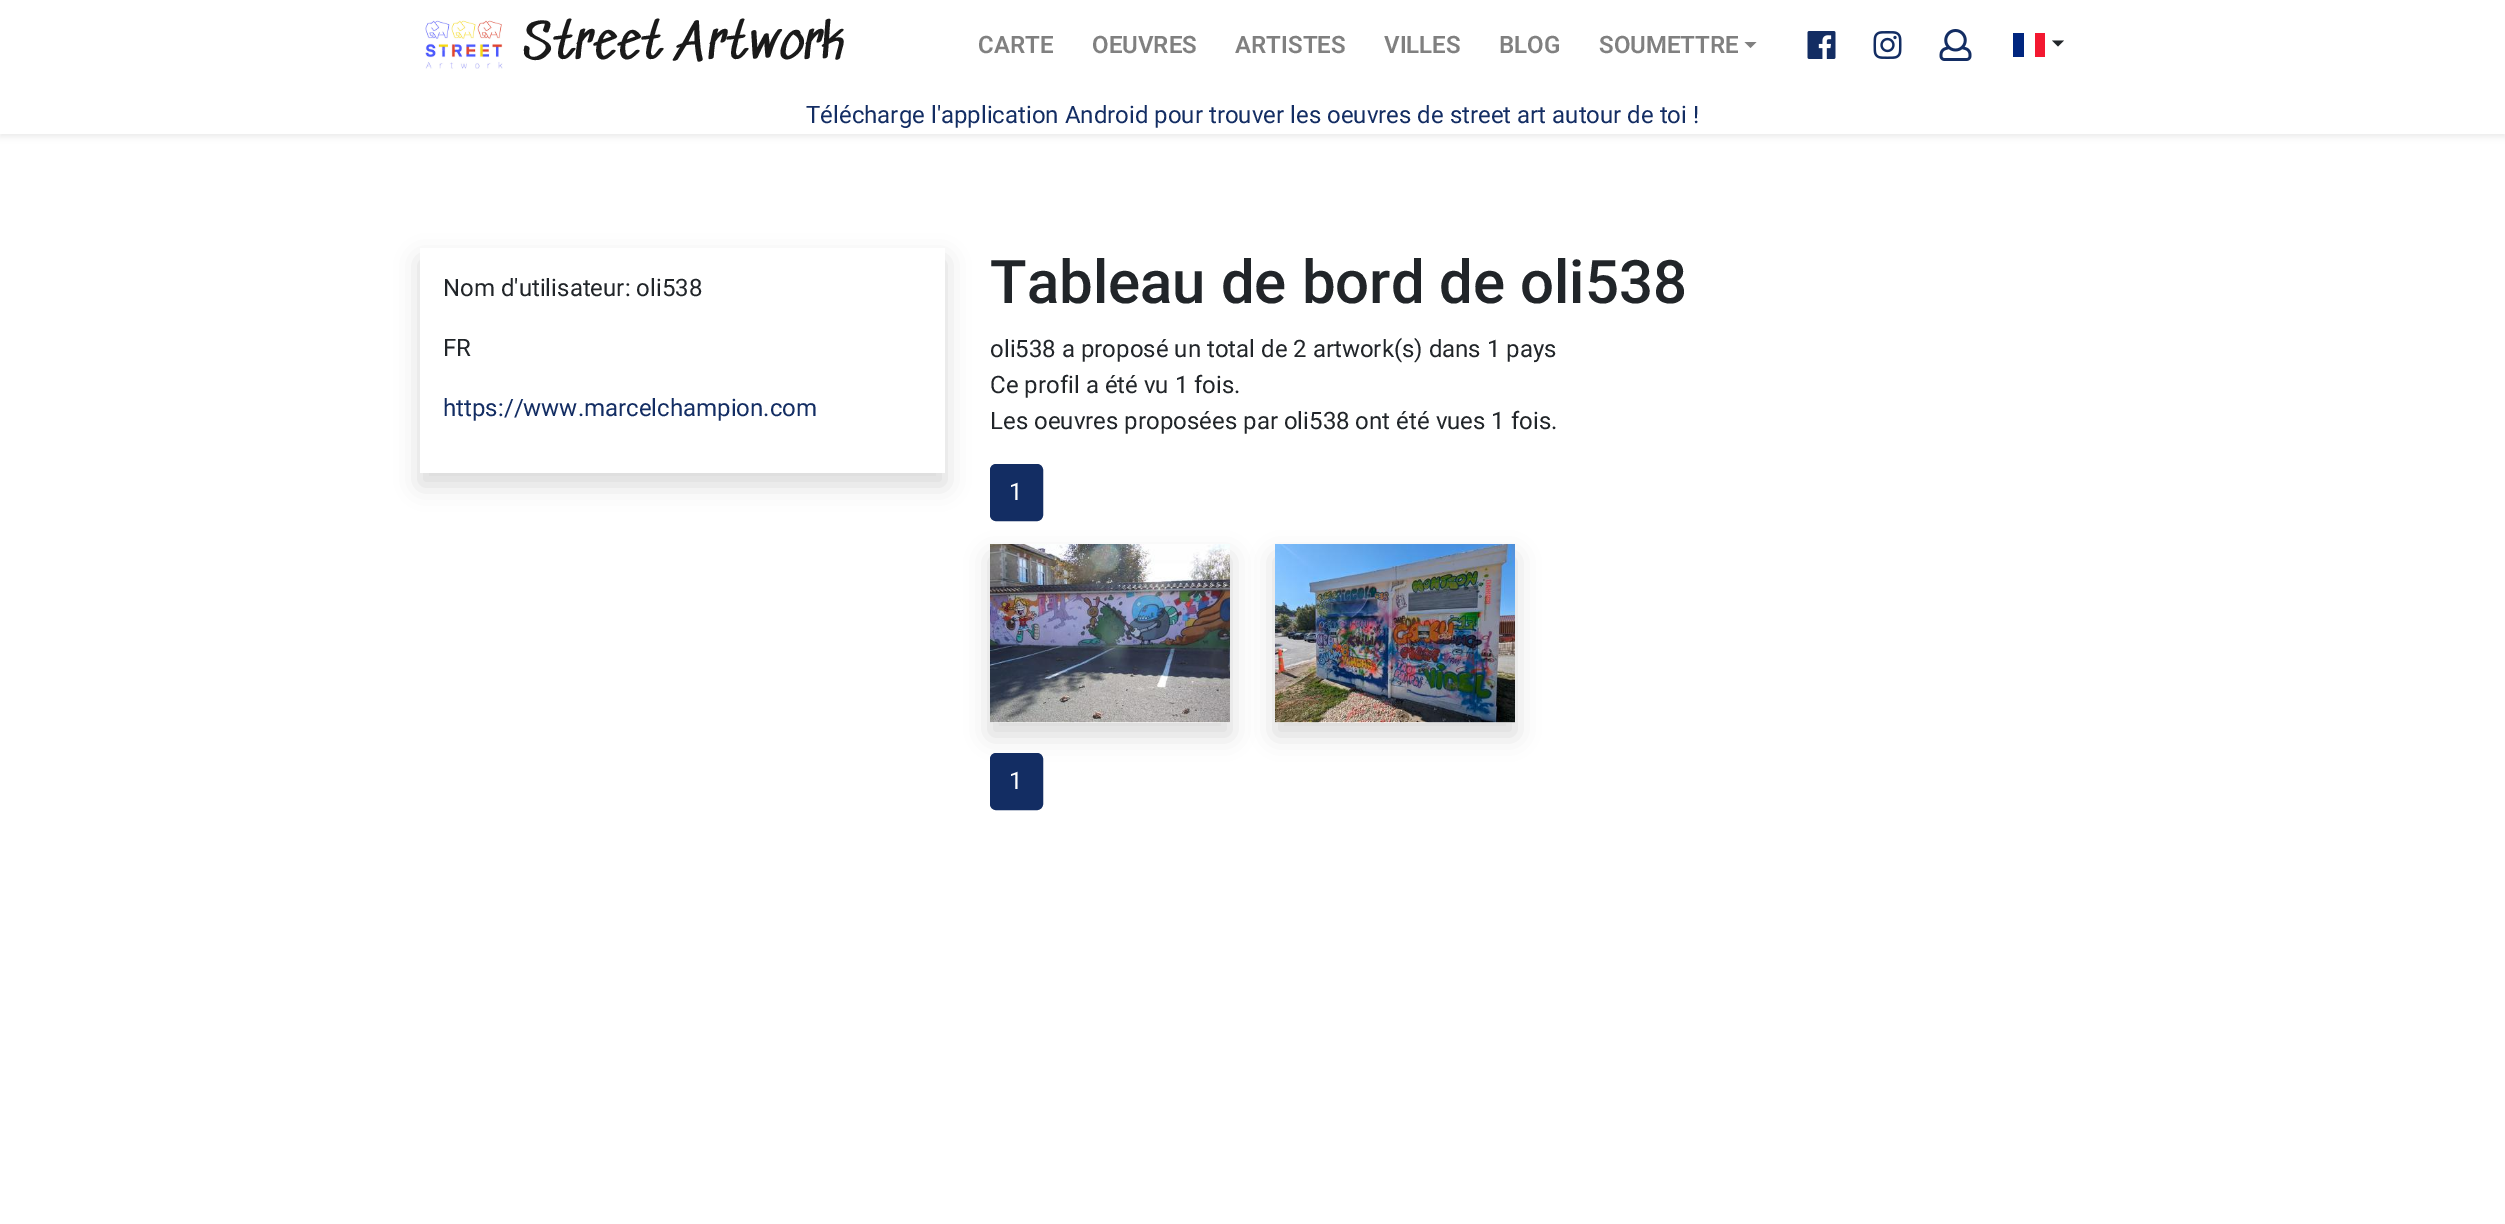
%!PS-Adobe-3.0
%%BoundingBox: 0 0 2505 1224
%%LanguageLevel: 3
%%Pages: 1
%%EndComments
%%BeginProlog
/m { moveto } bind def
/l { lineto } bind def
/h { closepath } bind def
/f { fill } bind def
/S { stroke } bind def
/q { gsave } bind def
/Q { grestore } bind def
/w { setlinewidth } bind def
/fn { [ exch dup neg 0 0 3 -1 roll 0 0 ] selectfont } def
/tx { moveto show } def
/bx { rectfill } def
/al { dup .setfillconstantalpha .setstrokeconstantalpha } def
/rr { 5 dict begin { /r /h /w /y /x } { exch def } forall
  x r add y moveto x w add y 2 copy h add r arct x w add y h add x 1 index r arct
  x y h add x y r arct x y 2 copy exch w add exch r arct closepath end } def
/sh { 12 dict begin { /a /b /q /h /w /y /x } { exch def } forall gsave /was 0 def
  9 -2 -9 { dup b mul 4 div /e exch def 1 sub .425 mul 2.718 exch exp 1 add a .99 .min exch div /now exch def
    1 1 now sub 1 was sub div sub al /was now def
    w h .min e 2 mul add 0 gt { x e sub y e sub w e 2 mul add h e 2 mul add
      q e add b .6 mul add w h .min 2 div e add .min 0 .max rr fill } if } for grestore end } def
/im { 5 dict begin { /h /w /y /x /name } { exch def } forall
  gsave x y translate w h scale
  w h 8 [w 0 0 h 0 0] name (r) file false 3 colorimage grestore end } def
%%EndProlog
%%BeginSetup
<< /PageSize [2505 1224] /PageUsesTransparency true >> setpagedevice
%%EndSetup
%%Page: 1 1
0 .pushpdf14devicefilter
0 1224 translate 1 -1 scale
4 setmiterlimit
1 setgray
0 0 2505 1224 bx
q
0 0 m 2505 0 l 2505 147 l 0 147 l h 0 -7 m 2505 -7 l 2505 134 l 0 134 l h eoclip newpath
0 setgray
0 -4 2505 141 0 3 0.07 sh
Q
(image0.raw) 425 20 78 49 im
/SedgwickAve-Regular 48 fn
0.102 setgray
(Street Artwork) 523 61 tx
/Roboto-SemiBold 24 fn
0.502 setgray
(CARTE) 978 53 tx
(OEUVRES) 1092 53 tx
(ARTISTES) 1235 53 tx
(VILLES) 1384 53 tx
(BLOG) 1499 53 tx
(SOUMETTRE) 1599 53 tx
1744.5 42 m 1756.5 42 l 1750.5 48 l h f
(image1.raw) 1807 31 29 28 im
(image2.raw) 1873 31 29 28 im
(image3.raw) 1939 29 33 32 im
0 0.149 0.498 setrgbcolor
2013 33 11 24 bx
0.953 0.094 0.188 setrgbcolor
2035 33 10 24 bx
0.129 0.145 0.161 setrgbcolor
2052 40.5 m 2064 40.5 l 2058 46.5 l h f
/Roboto-Regular 24 fn
0.075 0.176 0.388 setrgbcolor
(Télécharge l'application Android pour trouver les oeuvres de street art autour de toi !) 806 123 tx
0 setgray
420 260 525 225 0 12 0.15 sh
1 setgray
420 248 525 225 bx
0.129 0.145 0.161 setrgbcolor
(Nom d'utilisateur: oli538) 443 296 tx
(FR) 443 356 tx
0.075 0.176 0.388 setrgbcolor
(https://www.marcelchampion.com) 443 416 tx
/Roboto-Medium 60 fn
0.129 0.145 0.161 setrgbcolor
(Tableau de bord de oli538) 990 303 tx
/Roboto-Regular 24 fn
(oli538 a proposé un total de 2 artwork\(s\) dans 1 pays) 990 357 tx
(Ce profil a été vu 1 fois.) 990 393 tx
(Les oeuvres proposées par oli538 ont été vues 1 fois.) 990 429 tx
0 setgray
990 557 240 178 0 12 0.15 sh
0.075 0.176 0.388 setrgbcolor
991 465 51 55 5 rr q f Q
2 w
S
1 setgray
(1) 1009 500 tx
(image4.raw) 990 544 240 179 im
0 setgray
1275 557 240 178 0 12 0.15 sh
(image5.raw) 1275 544 240 179 im
0.075 0.176 0.388 setrgbcolor
991 754 51 55 5 rr q f Q
S
1 setgray
(1) 1009 789 tx
.poppdf14devicefilter showpage
%%EOF
